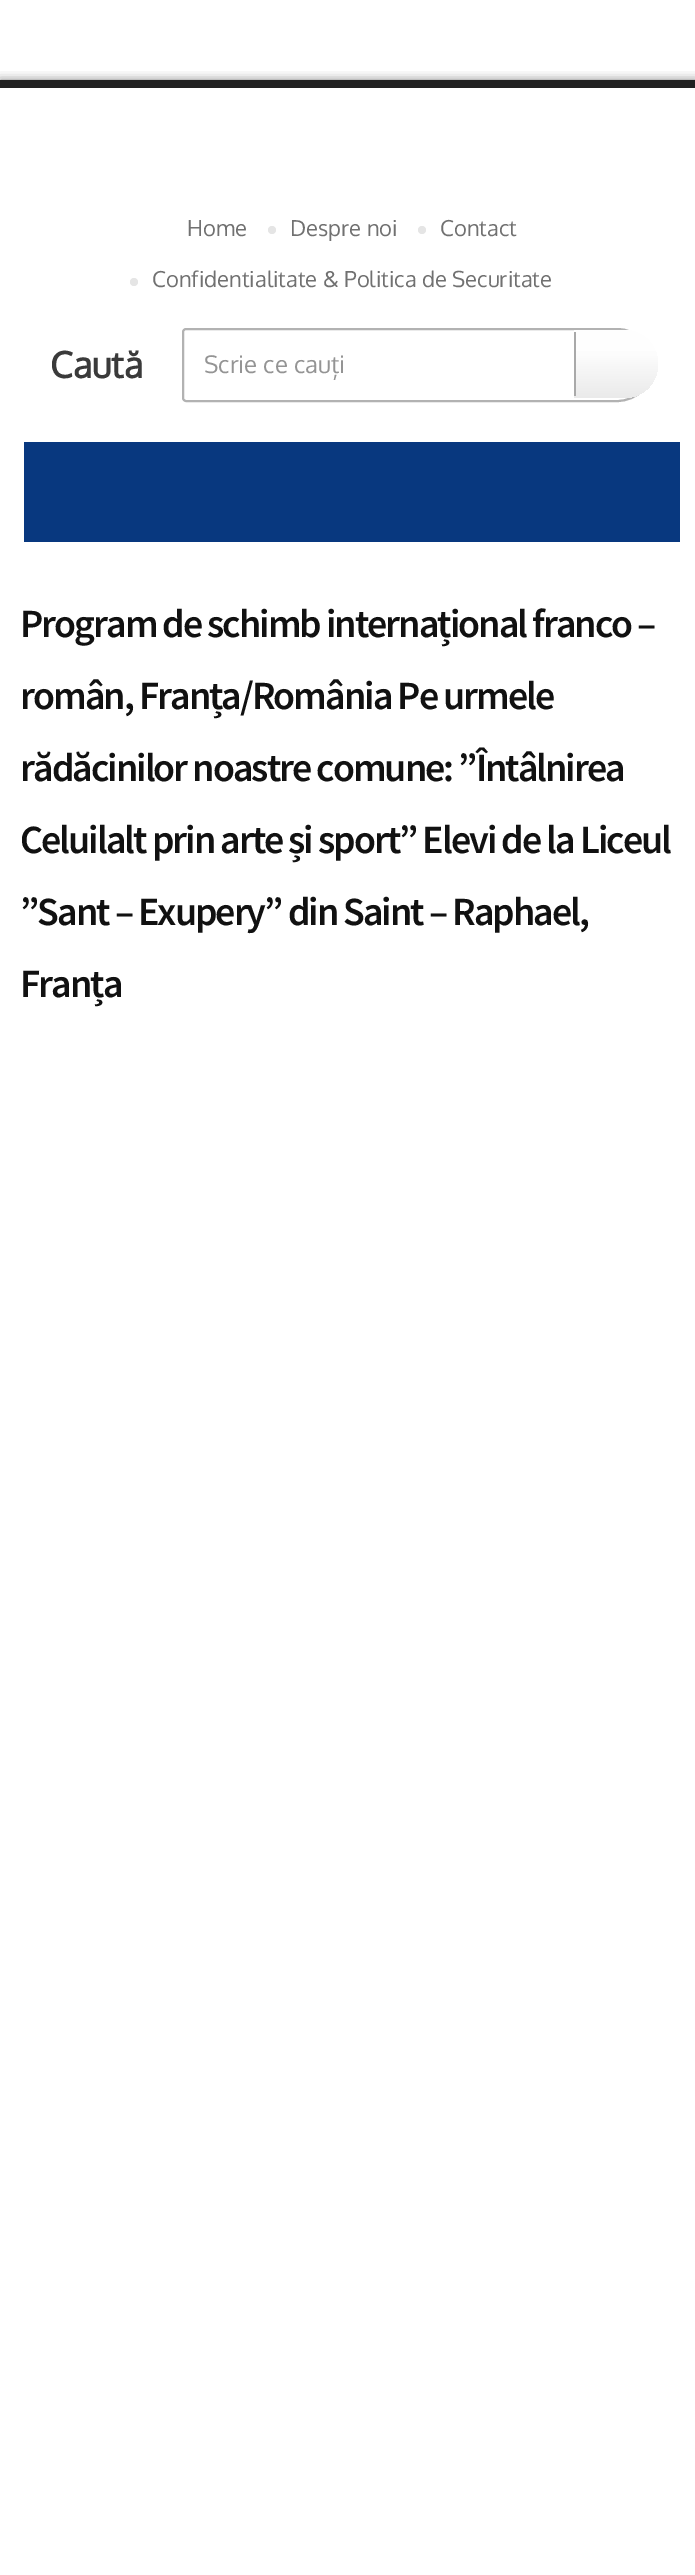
%!PS-Adobe-3.0
%%BoundingBox: 0 0 695 2575
%%LanguageLevel: 3
%%Pages: 1
%%EndComments
%%BeginProlog
/m { moveto } bind def
/l { lineto } bind def
/c { curveto } bind def
/h { closepath } bind def
/f { fill } bind def
/S { stroke } bind def
/q { gsave } bind def
/Q { grestore } bind def
/w { setlinewidth } bind def
/fn { [ exch dup neg 0 0 3 -1 roll 0 0 ] selectfont } def
/tx { moveto show } def
/bx { rectfill } def
/al { dup .setfillconstantalpha .setstrokeconstantalpha } def
/ci { newpath 0 360 arc closepath } def
/rr { 5 dict begin { /r /h /w /y /x } { exch def } forall
  x r add y moveto x w add y 2 copy h add r arct x w add y h add x 1 index r arct
  x y h add x y r arct x y 2 copy exch w add exch r arct closepath end } def
/sh { 12 dict begin { /a /b /q /h /w /y /x } { exch def } forall gsave /was 0 def
  9 -2 -9 { dup b mul 4 div /e exch def 1 sub .425 mul 2.718 exch exp 1 add a .99 .min exch div /now exch def
    1 1 now sub 1 was sub div sub al /was now def
    w h .min e 2 mul add 0 gt { x e sub y e sub w e 2 mul add h e 2 mul add
      q e add b .6 mul add w h .min 2 div e add .min 0 .max rr fill } if } for grestore end } def
%%EndProlog
%%BeginSetup
<< /PageSize [695 2575] /PageUsesTransparency true >> setpagedevice
%%EndSetup
%%Page: 1 1
0 .pushpdf14devicefilter
0 2575 translate 1 -1 scale
4 setmiterlimit
1 setgray
0 0 695 2575 bx
q
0 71 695 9 rectclip
0 setgray
0 80 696 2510 0 5 0.5 sh
Q
0.122 setgray
0 80 695 8 bx
0.988 setgray
0 88 695 2 bx
/Oxygen-Regular 22 fn
0.443 setgray
(Home) 187 236 tx
0.898 setgray
272 230 4 ci f
0.443 setgray
(Despre noi) 290 236 tx
0.898 setgray
422 230 4 ci f
0.443 setgray
(Contact) 440 236 tx
0.898 setgray
134 282 4 ci f
0.443 setgray
(Confidentialitate & Politica de Securitate) 152 287 tx
/Oxygen-Bold 36 fn
0.227 setgray
(Caută) 50 378 tx
0.698 setgray
2 w
186 329 m 617 329 l 637 329 653 345 653 365 c 653 385 637 401 617 401 c 186 401 l 184.5 401 183 399.5 183 398 c 183 332 l 183 330.5 184.5 329 186 329 c h S
q
204 350 428 30 rectclip
/Oxygen-Regular 24 fn
0.58 setgray
(Scrie ce cauți) 204 373 tx
Q
q 577 330 m 624 330 l 643 330 658 345 658 364 c 658 383 643 398 624 398 c 577 398 l 575.5 398 574 396.5 574 395 c 574 333 l 574 331.5 575.5 330 577 330 c h clip newpath
<< /ShadingType 2 /ColorSpace /DeviceRGB /Coords [617 330 617 398] /Extend [true true] /Function << /FunctionType 3 /Domain [0 1] /Functions [<< /FunctionType 2 /Domain [0 1] /C0 [0.996 0.996 0.996] /C1 [0.996 0.996 0.996] /N 1 >> << /FunctionType 2 /Domain [0 1] /C0 [0.996 0.996 0.996] /C1 [0.918 0.918 0.918] /N 1 >>] /Bounds [0.29] /Encode [0 1 0 1] >> >> shfill Q
0.663 setgray
574 332 2 64 bx
0.031 0.22 0.498 setrgbcolor
24 442 656 100 bx
/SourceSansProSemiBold-SemiBold 40 fn
0.067 setgray
20 637 m -2 0 (Program de schimb internațional franco –) ashow
20 709 m -2 0 (român, Franța/România Pe urmele) ashow
20 781 m -2 0 (rădăcinilor noastre comune: ”Întâlnirea) ashow
20 853 m -2 0 (Celuilalt prin arte și sport” Elevi de la Liceul) ashow
20 925 m -2 0 (”Sant – Exupery” din Saint – Raphael,) ashow
20 997 m -2 0 (Franța) ashow
.poppdf14devicefilter showpage
%%EOF
